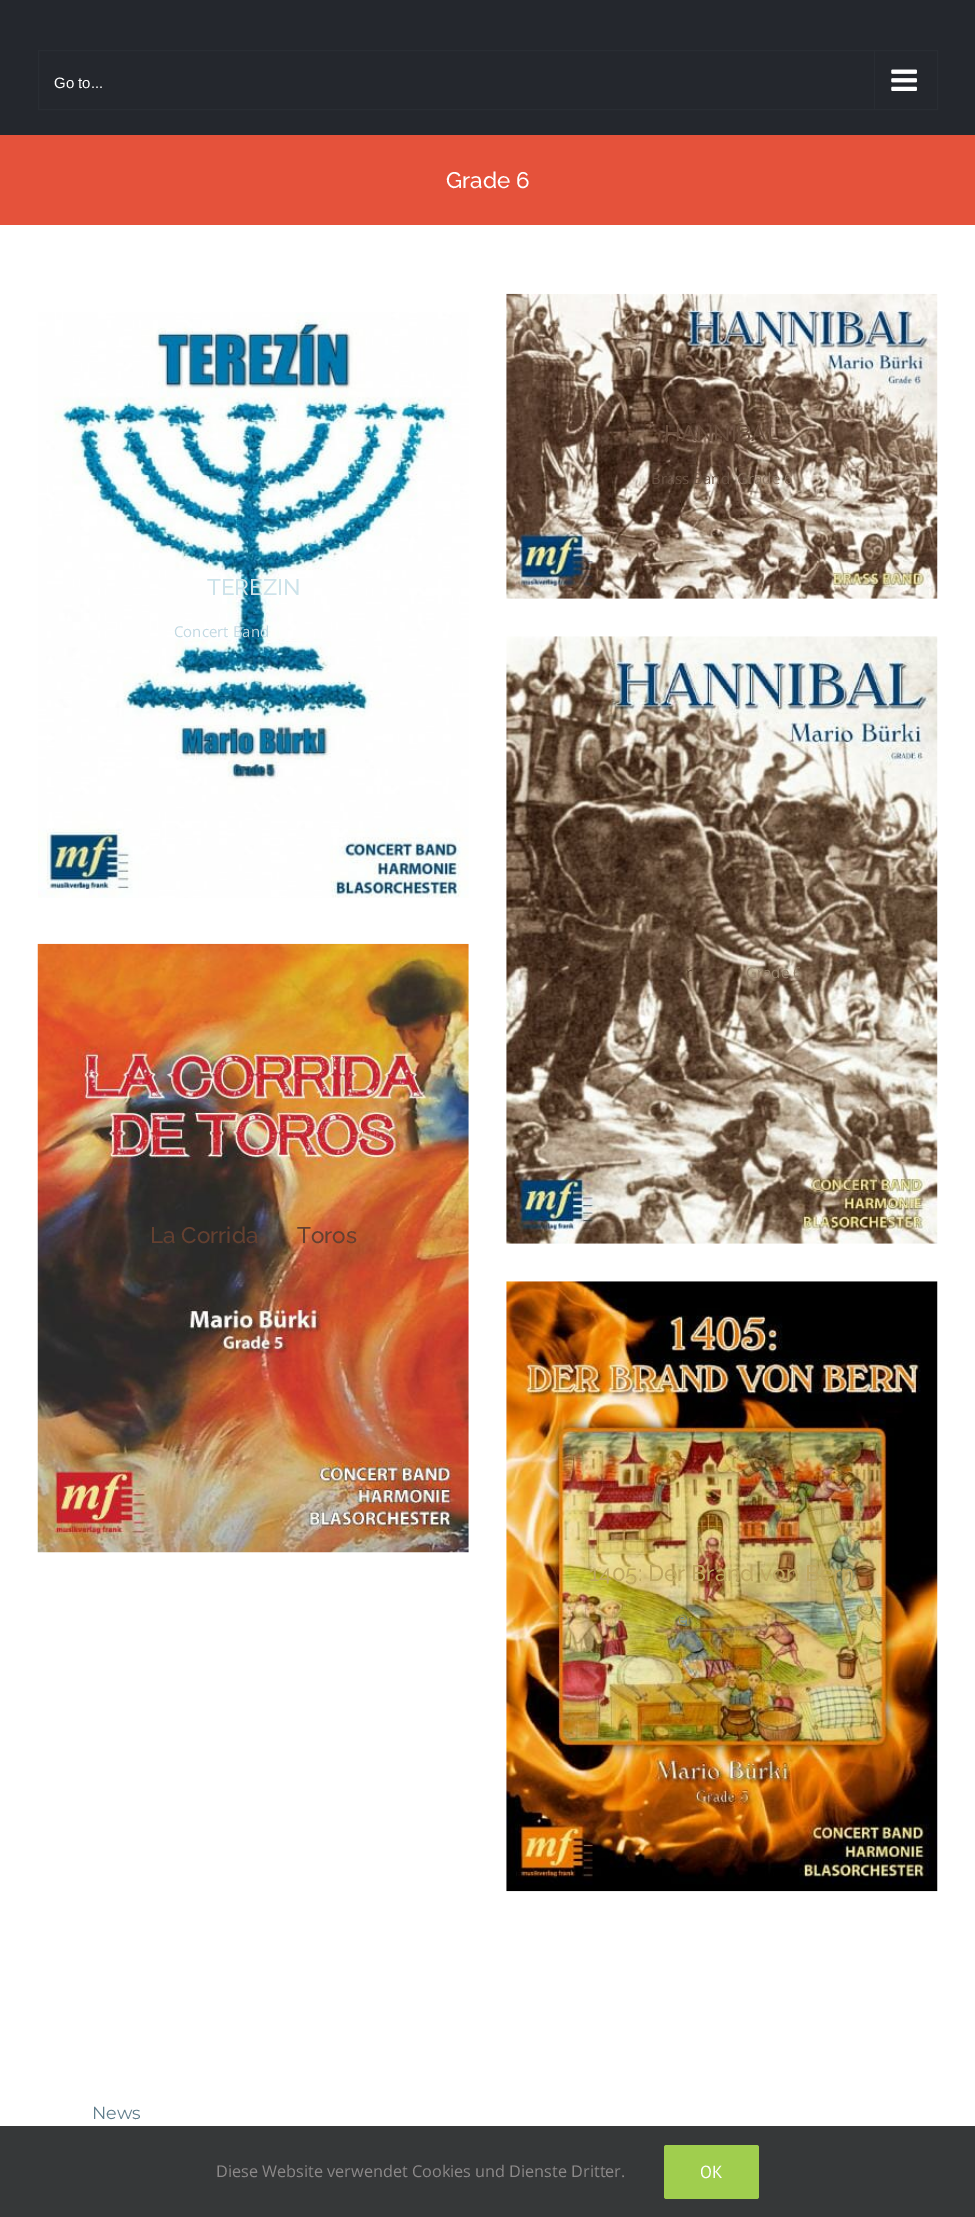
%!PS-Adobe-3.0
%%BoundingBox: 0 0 975 2217
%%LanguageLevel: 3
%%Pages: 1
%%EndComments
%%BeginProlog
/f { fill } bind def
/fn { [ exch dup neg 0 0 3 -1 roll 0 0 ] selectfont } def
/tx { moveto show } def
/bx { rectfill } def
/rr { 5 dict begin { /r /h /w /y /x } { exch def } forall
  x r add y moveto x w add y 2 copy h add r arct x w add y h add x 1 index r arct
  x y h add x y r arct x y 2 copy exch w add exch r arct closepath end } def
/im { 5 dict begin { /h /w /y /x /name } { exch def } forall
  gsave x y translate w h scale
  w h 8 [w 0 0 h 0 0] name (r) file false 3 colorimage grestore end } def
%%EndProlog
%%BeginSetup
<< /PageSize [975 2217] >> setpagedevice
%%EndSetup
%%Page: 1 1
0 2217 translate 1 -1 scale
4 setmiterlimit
1 setgray
0 0 975 2217 bx
0.141 0.153 0.176 setrgbcolor
0 0 975 135 bx
0.161 0.176 0.2 setrgbcolor
38.5 50.5 899 59 rectstroke
/LiberationSans-Regular 15 fn
1 setgray
(Go to...) 54 88 tx
0.161 0.176 0.2 setrgbcolor
874 51 1 58 bx
(image0.raw) 891 69 26 22 im
0.898 0.322 0.231 setrgbcolor
0 135 975 90 bx
/Raleway-Thin 22.5 fn
1 setgray
(Grade 6) 446 188 tx
(image1.raw) 506 293 432 306 im
0.408 0.31 0.247 setrgbcolor
(HANNIBAL) 664 441 tx
/OpenSans-Regular 15 fn
0.416 0.329 0.271 setrgbcolor
(Brass Band) 651 484 tx
0.541 0.459 0.388 setrgbcolor
(Grade 6) 737 484 tx
(image2.raw) 38 312 431 586 im
/Raleway-Thin 22.5 fn
0.804 0.89 0.918 setrgbcolor
(TEREZIN) 207 595 tx
/OpenSans-Regular 15 fn
0.761 0.851 0.886 setrgbcolor
(Concert Band) 174 637 tx
(image3.raw) 506 636 432 608 im
0.361 0.271 0.2 setrgbcolor
(r) 686 978 tx
0.588 0.514 0.427 setrgbcolor
(Grade 6) 746 978 tx
(image4.raw) 37 943 432 610 im
/Raleway-Thin 22.5 fn
0.392 0.251 0.188 setrgbcolor
(La Corrida) 150 1243 tx
(Toros) 297 1243 tx
(image5.raw) 506 1281 432 611 im
0.749 0.655 0.376 setrgbcolor
(1405: Der Brand von Bern) 589 1581 tx
/OpenSans-Regular 15 fn
0.663 0.592 0.22 setrgbcolor
(er) 678 1624 tx
/Montserrat-Thin 17.5 fn
0.376 0.49 0.545 setrgbcolor
(News) 92 2119 tx
0.212 0.22 0.224 setrgbcolor
0 2126 975 91 bx
/OpenSans-Regular 16.25 fn
0.549 0.537 0.537 setrgbcolor
(Diese Website verwendet Cookies und Dienste Dritter.) 216 2177 tx
0.627 0.808 0.306 setrgbcolor
664 2145 95 54 2.5 rr f
/PTSans-Regular 17.5 fn
1 setgray
(OK) 700 2178 tx
showpage
%%EOF
